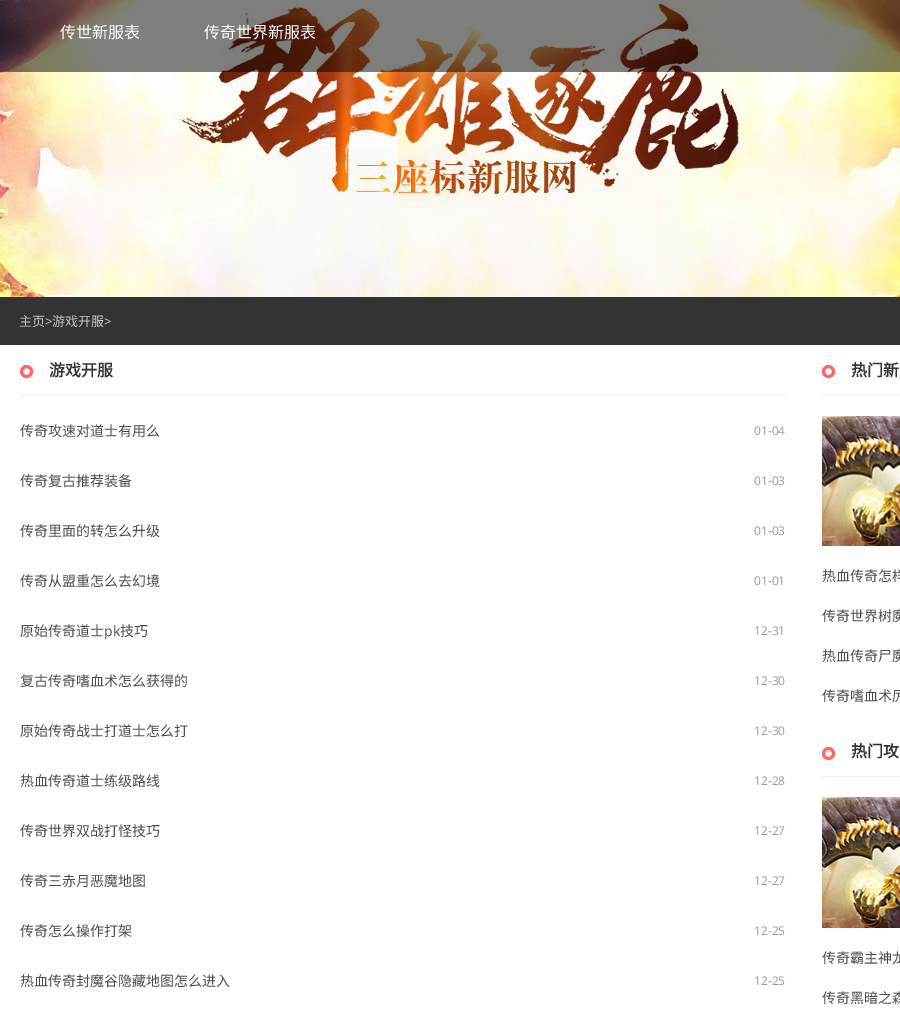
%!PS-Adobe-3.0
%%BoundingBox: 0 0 900 1021
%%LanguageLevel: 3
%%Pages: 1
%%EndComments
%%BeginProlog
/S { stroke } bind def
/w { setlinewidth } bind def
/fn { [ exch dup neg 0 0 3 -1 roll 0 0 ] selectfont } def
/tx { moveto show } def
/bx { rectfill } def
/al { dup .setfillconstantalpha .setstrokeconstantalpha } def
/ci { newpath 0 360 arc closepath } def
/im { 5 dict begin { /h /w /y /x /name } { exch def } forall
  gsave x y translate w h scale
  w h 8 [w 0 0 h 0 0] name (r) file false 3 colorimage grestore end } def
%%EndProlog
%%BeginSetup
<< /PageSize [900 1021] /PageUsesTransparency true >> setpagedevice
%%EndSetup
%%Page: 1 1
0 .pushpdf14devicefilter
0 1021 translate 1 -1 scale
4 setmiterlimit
1 setgray
0 0 900 1021 bx
(image0.raw) 0 0 900 297 im
0.5 al
0 setgray
0 0 900 72 bx
/NotoSansCJKSC-Regular 16 fn
1 al
1 setgray
(传世新服表) 60 38 tx
(传奇世界新服表) 204 38 tx
0.2 setgray
0 297 900 48 bx
/NotoSansCJKSC-Regular 13 fn
0.784 setgray
(主页) 19 326 tx
/OpenSans-Regular 13 fn
(>) 45 326 tx
/NotoSansCJKSC-Regular 13 fn
(游戏开服) 52 326 tx
/OpenSans-Regular 13 fn
(>) 104 326 tx
0.933 setgray
20 395 766 1 bx
1 0.4 0.4 setrgbcolor
3 w
26.5 371.5 5 ci S
/NotoSansCJKSC-Bold 16 fn
0.2 setgray
(游戏开服) 49 376 tx
/NotoSansCJKSC-Regular 14 fn
0.298 setgray
(传奇攻速对道士有用么) 20 436 tx
/OpenSans-Regular 12 fn
0.6 setgray
(01-04) 754 435 tx
/NotoSansCJKSC-Regular 14 fn
0.298 setgray
(传奇复古推荐装备) 20 486 tx
/OpenSans-Regular 12 fn
0.6 setgray
(01-03) 754 485 tx
/NotoSansCJKSC-Regular 14 fn
0.298 setgray
(传奇里面的转怎么升级) 20 536 tx
/OpenSans-Regular 12 fn
0.6 setgray
(01-03) 754 535 tx
/NotoSansCJKSC-Regular 14 fn
0.298 setgray
(传奇从盟重怎么去幻境) 20 586 tx
/OpenSans-Regular 12 fn
0.6 setgray
(01-01) 754 585 tx
/NotoSansCJKSC-Regular 14 fn
0.298 setgray
(原始传奇道士) 20 636 tx
/OpenSans-Regular 14 fn
(pk) 104 636 tx
/NotoSansCJKSC-Regular 14 fn
(技巧) 120 636 tx
/OpenSans-Regular 12 fn
0.6 setgray
(12-31) 754 635 tx
/NotoSansCJKSC-Regular 14 fn
0.298 setgray
(复古传奇嗜血术怎么获得的) 20 686 tx
/OpenSans-Regular 12 fn
0.6 setgray
(12-30) 754 685 tx
/NotoSansCJKSC-Regular 14 fn
0.298 setgray
(原始传奇战士打道士怎么打) 20 736 tx
/OpenSans-Regular 12 fn
0.6 setgray
(12-30) 754 735 tx
/NotoSansCJKSC-Regular 14 fn
0.298 setgray
(热血传奇道士练级路线) 20 786 tx
/OpenSans-Regular 12 fn
0.6 setgray
(12-28) 754 785 tx
/NotoSansCJKSC-Regular 14 fn
0.298 setgray
(传奇世界双战打怪技巧) 20 836 tx
/OpenSans-Regular 12 fn
0.6 setgray
(12-27) 754 835 tx
/NotoSansCJKSC-Regular 14 fn
0.298 setgray
(传奇三赤月恶魔地图) 20 886 tx
/OpenSans-Regular 12 fn
0.6 setgray
(12-27) 754 885 tx
/NotoSansCJKSC-Regular 14 fn
0.298 setgray
(传奇怎么操作打架) 20 936 tx
/OpenSans-Regular 12 fn
0.6 setgray
(12-25) 754 935 tx
/NotoSansCJKSC-Regular 14 fn
0.298 setgray
(热血传奇封魔谷隐藏地图怎么进入) 20 986 tx
/OpenSans-Regular 12 fn
0.6 setgray
(12-25) 754 985 tx
0.933 setgray
822 395 78 1 bx
1 0.4 0.4 setrgbcolor
828.5 371.5 5 ci S
/NotoSansCJKSC-Bold 16 fn
0.2 setgray
(热门新) 851 376 tx
(image1.raw) 822 416 78 130 im
/NotoSansCJKSC-Regular 14 fn
0.298 setgray
(热血传奇怎样) 822 581 tx
(传奇世界树魔) 822 621 tx
(热血传奇尸魔) 822 661 tx
(传奇嗜血术厉) 822 701 tx
0.933 setgray
822 776 78 1 bx
1 0.4 0.4 setrgbcolor
828.5 753.5 5 ci S
/NotoSansCJKSC-Bold 16 fn
0.2 setgray
(热门攻) 851 757 tx
(image2.raw) 822 797 78 131 im
/NotoSansCJKSC-Regular 14 fn
0.298 setgray
(传奇霸主神龙) 822 963 tx
(传奇黑暗之森) 822 1003 tx
.poppdf14devicefilter showpage
%%EOF
